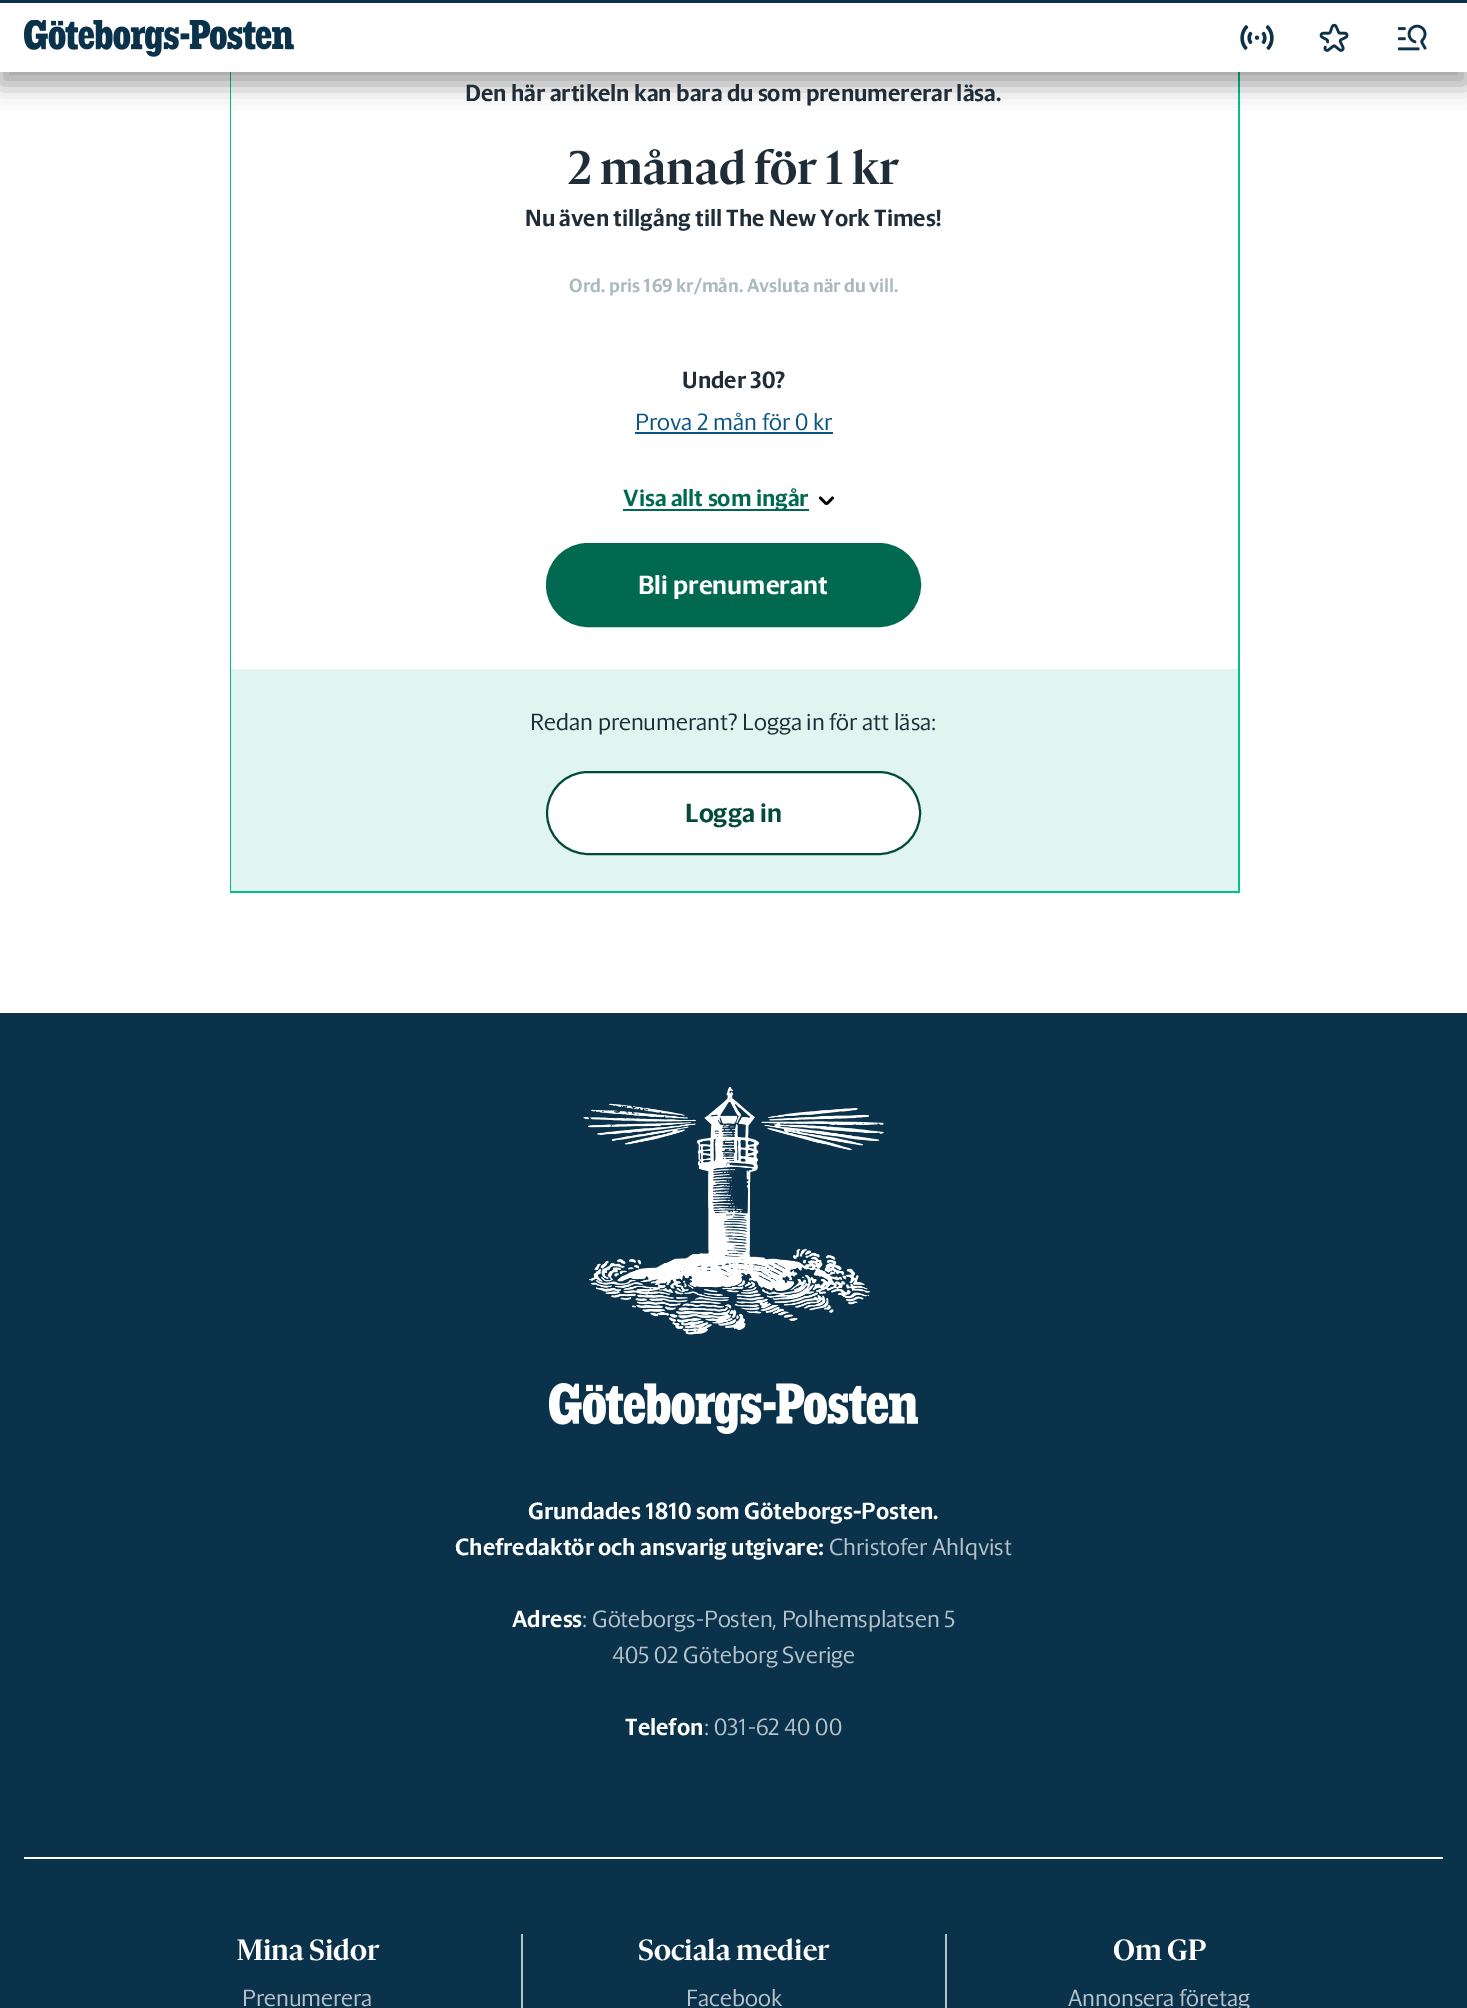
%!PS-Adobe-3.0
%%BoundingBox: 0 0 1467 2008
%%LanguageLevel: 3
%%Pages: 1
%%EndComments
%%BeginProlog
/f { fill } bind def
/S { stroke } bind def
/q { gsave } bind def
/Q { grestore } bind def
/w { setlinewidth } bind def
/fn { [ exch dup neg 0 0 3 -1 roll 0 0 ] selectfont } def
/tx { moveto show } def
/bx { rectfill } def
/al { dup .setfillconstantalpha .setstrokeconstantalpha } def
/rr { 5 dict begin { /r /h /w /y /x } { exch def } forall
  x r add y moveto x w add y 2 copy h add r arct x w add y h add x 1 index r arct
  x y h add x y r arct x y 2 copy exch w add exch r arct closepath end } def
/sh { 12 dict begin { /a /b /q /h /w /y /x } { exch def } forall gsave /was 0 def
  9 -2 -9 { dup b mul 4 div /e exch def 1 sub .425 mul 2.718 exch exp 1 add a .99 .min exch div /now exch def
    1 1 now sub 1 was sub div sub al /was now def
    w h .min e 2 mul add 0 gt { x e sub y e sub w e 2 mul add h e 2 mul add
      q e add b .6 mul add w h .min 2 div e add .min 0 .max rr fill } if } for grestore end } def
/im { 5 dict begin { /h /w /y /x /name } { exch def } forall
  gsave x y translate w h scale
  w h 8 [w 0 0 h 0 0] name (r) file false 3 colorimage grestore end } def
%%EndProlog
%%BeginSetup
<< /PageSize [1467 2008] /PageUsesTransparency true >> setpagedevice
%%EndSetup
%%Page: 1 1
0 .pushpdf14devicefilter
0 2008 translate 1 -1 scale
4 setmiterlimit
0.039 0.196 0.294 setrgbcolor
0 0 1467 2008 bx
1 setgray
0 72 1467 941 bx
0 0.765 0.537 setrgbcolor
1238 72 2 821 bx
230 891 1009 2 bx
230 72 2 821 bx
1 setgray
231 72 1 597 bx
0 setgray
0 12 1467 72 0 12 0.2 sh
0 12 1467 72 0 12 0.2 sh
1 setgray
0 3 1467 69 bx
0.039 0.196 0.294 setrgbcolor
0 0 1467 3 bx
(image0.raw) 24 20 270 37 im
(image1.raw) 1240 25 34 25 im
(image2.raw) 1319 23 30 29 im
(image3.raw) 1397 24 30 27 im
0.882 0.961 0.941 setrgbcolor
231 669 1007 222 bx
/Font-Bold 24 fn
0.118 0.176 0.216 setrgbcolor
(Den här artikeln kan bara du som prenumererar läsa.) 465 101 tx
/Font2-Bold 48 fn
(2 månad för 1 kr) 568 184 tx
/Font-Bold 24 fn
(Nu även tillgång till The New York Times!) 525 226 tx
/Font-Bold 19.4 fn
0.667 0.725 0.745 setrgbcolor
(Ord. pris 169 kr/mån. Avsluta när du vill.) 569 292 tx
/Font-Bold 24 fn
0.118 0.176 0.216 setrgbcolor
(Under 30?) 682 388 tx
/Font-Light 24 fn
0.039 0.333 0.51 setrgbcolor
(Prova 2 mån för 0 kr) 635 430 tx
635 432 198 2 bx
0 0.412 0.314 setrgbcolor
623 509 186 2 bx
/Font-Bold 24 fn
(Visa allt som ingår) 623 506 tx
(image4.raw) 818 496 17 9 im
547 544 373 82 41 rr q f Q
2 w
S
/Font-Bold 27 fn
1 setgray
(Bli prenumerant) 638 594 tx
/Font-Light 24 fn
0.118 0.176 0.216 setrgbcolor
(Redan prenumerant? Logga in för att läsa:) 530 730 tx
1 setgray
547 772 373 82 41 rr q f Q
0.008 0.294 0.227 setrgbcolor
S
/Font-Bold 27 fn
(Logga in) 685 822 tx
(image5.raw) 583 1087 301 248 im
(image6.raw) 549 1383 369 51 im
1 setgray
24 1857 1419 2 bx
/Font-Bold 24 fn
(Grundades 1810 som Göteborgs-Posten.) 528 1519 tx
(Chefredaktör och ansvarig utgivare:) 455 1555 tx
/Font-Light 24 fn
0.714 0.761 0.788 setrgbcolor
(Christofer Ahlqvist) 829 1555 tx
/Font-Bold 24 fn
1 setgray
(Adress) 512 1627 tx
/Font-Light 24 fn
0.714 0.761 0.788 setrgbcolor
(: Göteborgs-Posten, Polhemsplatsen 5) 582 1627 tx
(405 02 Göteborg Sverige) 612 1663 tx
/Font-Bold 24 fn
1 setgray
(Telefon) 625 1735 tx
/Font-Light 24 fn
0.714 0.761 0.788 setrgbcolor
(: 031-62 40 00) 704 1735 tx
/Font2-Bold 30 fn
1 setgray
(Mina Sidor) 237 1960 tx
/Font-Light 24 fn
0.714 0.761 0.788 setrgbcolor
(Prenumerera) 242 2006 tx
945 1934 2 74 bx
521 1934 2 74 bx
/Font2-Bold 30 fn
1 setgray
(Sociala medier) 638 1960 tx
/Font-Light 24 fn
0.714 0.761 0.788 setrgbcolor
(Facebook) 686 2006 tx
/Font2-Bold 30 fn
1 setgray
(Om GP) 1113 1960 tx
/Font-Light 24 fn
0.714 0.761 0.788 setrgbcolor
(Annonsera företag) 1068 2006 tx
.poppdf14devicefilter showpage
%%EOF
